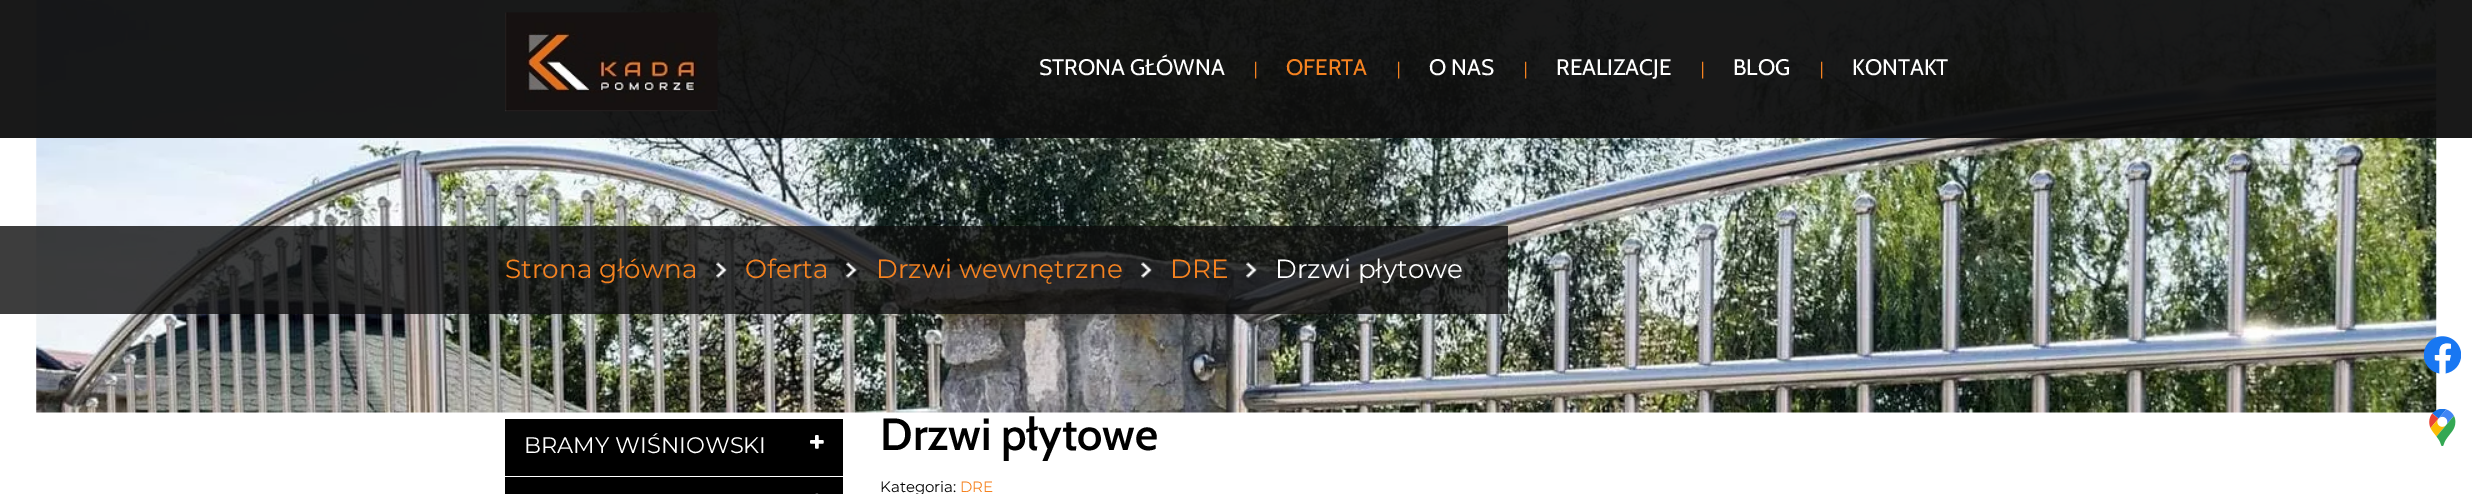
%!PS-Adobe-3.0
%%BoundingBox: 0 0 2472 494
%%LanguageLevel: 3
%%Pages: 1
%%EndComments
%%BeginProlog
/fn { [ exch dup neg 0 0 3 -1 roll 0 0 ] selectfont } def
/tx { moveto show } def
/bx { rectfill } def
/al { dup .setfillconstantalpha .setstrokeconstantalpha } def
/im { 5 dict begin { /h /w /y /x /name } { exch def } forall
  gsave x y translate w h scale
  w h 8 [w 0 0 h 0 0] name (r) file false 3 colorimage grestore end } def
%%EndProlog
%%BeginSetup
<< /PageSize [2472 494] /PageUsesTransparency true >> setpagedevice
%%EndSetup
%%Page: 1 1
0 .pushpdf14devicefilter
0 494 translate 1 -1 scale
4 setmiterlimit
1 setgray
0 0 2472 494 bx
(image1.raw) 36 0 2401 413 im
0.95 al
0.051 setgray
0 0 2472 138 bx
1 al
(image0.raw) 505 12 213 100 im
/Cabin-Regular 22.5 fn
1 setgray
(STRONA GŁÓWNA) 1039 75 tx
/Montserrat-Regular 18 fn
0.961 0.51 0.125 setrgbcolor
(|) 1253 75 tx
/Cabin-Regular 22.5 fn
(OFERTA) 1286 75 tx
/Montserrat-Regular 18 fn
(|) 1396 75 tx
/Cabin-Regular 22.5 fn
1 setgray
(O NAS) 1429 75 tx
/Montserrat-Regular 18 fn
0.961 0.51 0.125 setrgbcolor
(|) 1523 75 tx
/Cabin-Regular 22.5 fn
1 setgray
(REALIZACJE) 1556 75 tx
/Montserrat-Regular 18 fn
0.961 0.51 0.125 setrgbcolor
(|) 1700 75 tx
/Cabin-Regular 22.5 fn
1 setgray
(BLOG) 1733 75 tx
/Montserrat-Regular 18 fn
0.961 0.51 0.125 setrgbcolor
(|) 1819 75 tx
/Cabin-Regular 22.5 fn
1 setgray
(KONTAKT) 1852 75 tx
0.8 al
0.051 setgray
0 226 1508 88 bx
/Montserrat-Regular 26.25 fn
1 al
0.961 0.51 0.125 setrgbcolor
(Strona główna) 505 278 tx
(image2.raw) 716 262 11 16 im
(Oferta) 745 278 tx
(image3.raw) 846 262 11 16 im
(Drzwi wewnętrzne) 876 278 tx
(image4.raw) 1141 262 11 16 im
(DRE) 1170 278 tx
(image5.raw) 1246 262 11 16 im
1 setgray
(Drzwi płytowe) 1275 278 tx
(image6.raw) 2424 336 37 38 im
(image7.raw) 2429 409 27 37 im
0 setgray
505 419 338 75 bx
1 setgray
505 476 338 1 bx
/Montserrat-Regular 22.5 fn
(BRAMY WIŚNIOWSKI) 524 453 tx
(image8.raw) 810 435 14 14 im
(image9.raw) 815 493 4 1 im
/Cabin-SemiBold 45 fn
0 setgray
(Drzwi płytowe) 880 450 tx
/Montserrat-Regular 15 fn
(Kategoria:) 880 492 tx
0.961 0.51 0.125 setrgbcolor
(DRE) 960 492 tx
.poppdf14devicefilter showpage
%%EOF
